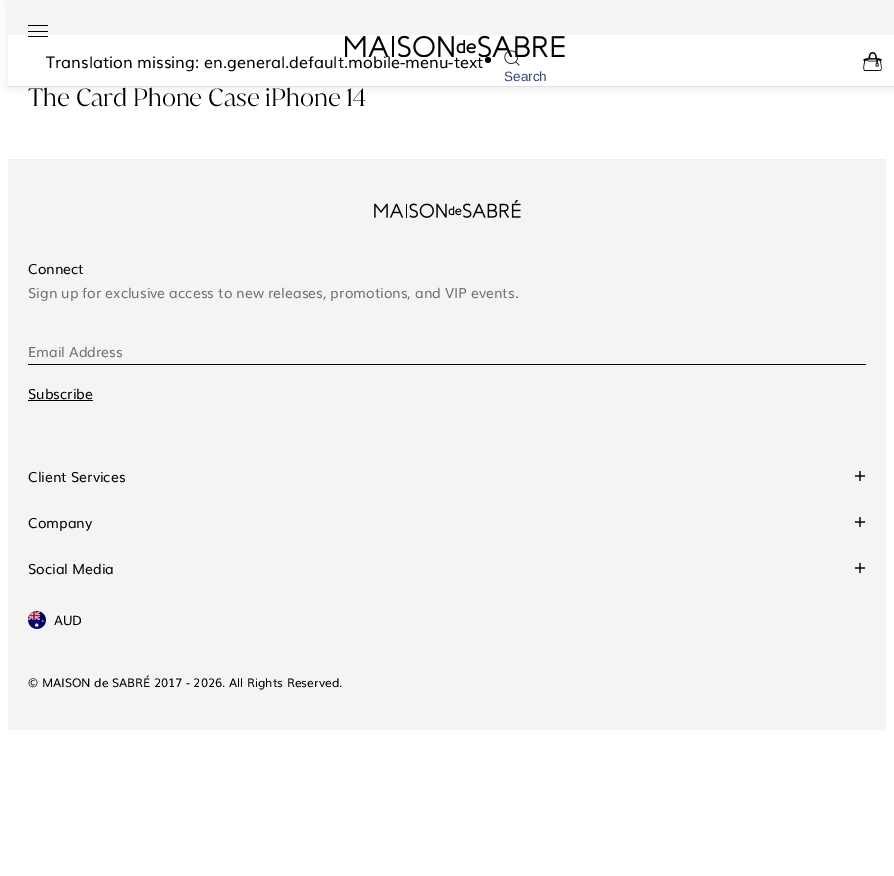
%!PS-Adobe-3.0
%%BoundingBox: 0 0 894 876
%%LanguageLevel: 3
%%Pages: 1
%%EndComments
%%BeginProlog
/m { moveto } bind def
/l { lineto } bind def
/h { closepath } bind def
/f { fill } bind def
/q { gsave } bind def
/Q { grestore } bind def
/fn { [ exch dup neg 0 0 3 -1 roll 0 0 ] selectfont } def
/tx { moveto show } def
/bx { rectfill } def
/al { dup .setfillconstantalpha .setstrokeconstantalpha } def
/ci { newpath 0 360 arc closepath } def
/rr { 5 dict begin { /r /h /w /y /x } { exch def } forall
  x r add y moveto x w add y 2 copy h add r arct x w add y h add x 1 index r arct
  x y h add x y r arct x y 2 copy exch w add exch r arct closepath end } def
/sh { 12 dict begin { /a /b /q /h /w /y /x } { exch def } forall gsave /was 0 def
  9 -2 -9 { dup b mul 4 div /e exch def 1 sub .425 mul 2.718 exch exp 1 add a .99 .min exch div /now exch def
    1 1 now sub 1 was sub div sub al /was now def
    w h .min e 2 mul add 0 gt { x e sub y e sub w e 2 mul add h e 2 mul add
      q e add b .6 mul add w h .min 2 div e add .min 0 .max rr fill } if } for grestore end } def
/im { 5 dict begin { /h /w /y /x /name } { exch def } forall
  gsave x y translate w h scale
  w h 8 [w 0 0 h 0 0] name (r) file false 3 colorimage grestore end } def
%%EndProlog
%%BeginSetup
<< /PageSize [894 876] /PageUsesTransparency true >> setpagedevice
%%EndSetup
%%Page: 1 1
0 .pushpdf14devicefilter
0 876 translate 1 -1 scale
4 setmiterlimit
1 setgray
0 0 894 876 bx
q
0 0 m 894 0 l 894 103 l 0 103 l h 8 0 m 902 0 l 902 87 l 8 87 l h eoclip newpath
0 setgray
8 0 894 87 0 5 0.1 sh
Q
0.957 setgray
8 0 886 35 bx
0.882 setgray
8 86 886 1 bx
0 setgray
28 25 20 1 0.5 rr f
28 31 20 1 0.5 rr f
28 36 20 1 0.5 rr f
/Muli-Regular 16 fn
(Translation missing: en.general.default.mobile-menu-text) 46 68 tx
(image1.raw) 504 50 16 16 im
(image0.raw) 345 35 220 22 im
488 60 3 ci f
/LiberationSans-Regular 13.5 fn
0.204 0.282 0.435 setrgbcolor
(Search) 504 81 tx
(image2.raw) 863 52 19 19 im
/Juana-Light 24 fn
0 setgray
(The Card Phone Case iPhone 14) 28 106 tx
0.957 setgray
8 160 878 570 bx
0.933 setgray
8 159 878 1 bx
(image3.raw) 374 200 147 18 im
/Muli-Regular 14 fn
0 setgray
(Connect) 28 274 tx
0.435 setgray
(Sign up for exclusive access to new releases, promotions, and VIP events.) 28 298 tx
0 setgray
28 364 838 1 bx
0.435 setgray
(Email Address) 28 357 tx
0 setgray
(Subscribe) 28 399 tx
28 400 65 1 bx
(Client Services) 28 482 tx
(image4.raw) 855 471 10 10 im
(Company) 28 528 tx
(image4.raw) 855 517 10 10 im
(Social Media) 28 574 tx
(image4.raw) 855 563 10 10 im
(image5.raw) 28 611 18 18 im
/Muli-Regular 13 fn
(AUD) 54 625 tx
/Muli-Regular 12 fn
(© MAISON de SABRÉ 2017 - 2026. All Rights Reserved.) 28 687 tx
.poppdf14devicefilter showpage
%%EOF
